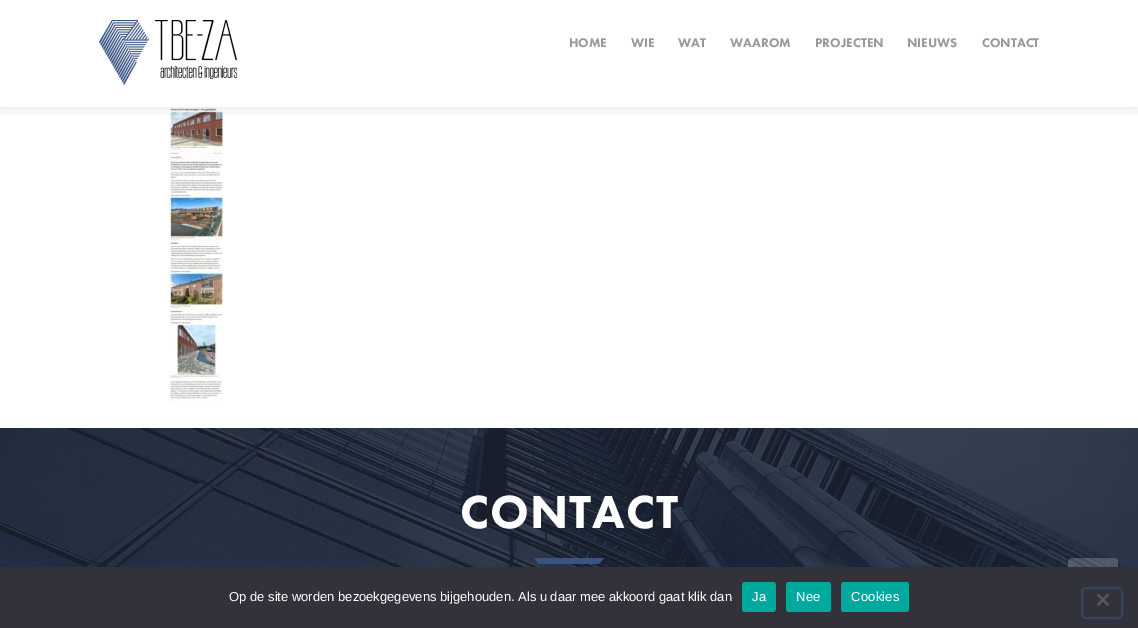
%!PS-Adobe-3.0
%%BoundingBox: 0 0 1138 628
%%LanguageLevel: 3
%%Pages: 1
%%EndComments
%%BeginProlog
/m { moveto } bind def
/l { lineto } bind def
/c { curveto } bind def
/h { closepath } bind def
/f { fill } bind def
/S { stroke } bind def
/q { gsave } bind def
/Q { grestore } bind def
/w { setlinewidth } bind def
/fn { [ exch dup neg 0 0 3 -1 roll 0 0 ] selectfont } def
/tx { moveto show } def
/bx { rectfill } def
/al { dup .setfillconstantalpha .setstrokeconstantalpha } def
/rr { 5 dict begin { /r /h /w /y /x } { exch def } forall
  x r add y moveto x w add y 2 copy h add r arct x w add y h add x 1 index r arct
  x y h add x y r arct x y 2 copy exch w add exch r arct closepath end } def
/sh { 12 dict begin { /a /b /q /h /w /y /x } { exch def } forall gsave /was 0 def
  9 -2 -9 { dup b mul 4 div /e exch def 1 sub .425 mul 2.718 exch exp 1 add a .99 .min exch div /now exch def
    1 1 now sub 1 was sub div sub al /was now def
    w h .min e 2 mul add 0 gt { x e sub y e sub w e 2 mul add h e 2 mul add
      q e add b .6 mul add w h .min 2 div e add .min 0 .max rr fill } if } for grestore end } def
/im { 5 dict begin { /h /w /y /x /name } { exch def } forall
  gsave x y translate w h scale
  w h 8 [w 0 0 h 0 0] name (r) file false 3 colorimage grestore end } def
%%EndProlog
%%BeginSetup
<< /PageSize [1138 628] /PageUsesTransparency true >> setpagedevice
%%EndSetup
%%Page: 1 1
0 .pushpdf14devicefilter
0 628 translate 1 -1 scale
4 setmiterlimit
1 setgray
0 0 1138 628 bx
(image1.raw) 169 107 54 296 im
q
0 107 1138 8 rectclip
0 setgray
0 0 1138 107 0 10 0.1 sh
Q
(image0.raw) 99 20 138 65 im
/FuturaPT-Black 13 fn
0.6 setgray
(HOME) 569 47 tx
(WIE) 631 47 tx
(WAT) 678 47 tx
(WAAROM) 730 47 tx
(PROJECTEN) 815 47 tx
(NIEUWS) 907 47 tx
(CONTACT) 982 47 tx
(image2.raw) 0 428 1138 139 im
/FuturaPT-Black 48 fn
1 setgray
460 528 m 1 0 (CONTACT) ashow
0.227 0.329 0.51 setrgbcolor
534 558 m 604 558 l 599 564 l 539 564 l h f
q
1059 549 m 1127 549 l 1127 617 l 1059 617 l h 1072 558 m 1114 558 l 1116 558 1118 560 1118 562 c 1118 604 l 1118 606 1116 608 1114 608 c 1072 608 l 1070 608 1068 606 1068 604 c 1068 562 l 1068 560 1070 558 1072 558 c h eoclip newpath
0 setgray
1068 558 50 50 4 2.5 0.1 sh
Q
0.2 al
1 setgray
1068 558 50 50 4 rr f
1 al
0.196 0.196 0.227 setrgbcolor
0 567 1138 61 bx
/LiberationSans-Regular 13 fn
1 setgray
(Op de site worden bezoekgegevens bijgehouden. Als u daar mee akkoord gaat klik dan) 229 601 tx
0 0.663 0.616 setrgbcolor
742 582 34 30 3 rr f
1 setgray
752 601 m 0.25 0 (Ja) ashow
0 0.663 0.616 setrgbcolor
786 582 45 30 3 rr f
1 setgray
796 601 m 0.25 0 (Nee) ashow
0 0.663 0.616 setrgbcolor
841 582 68 30 3 rr f
1 setgray
851 601 m 0.25 0 (Cookies) ashow
0.212 0.263 0.369 setrgbcolor
2 w
1082 588 40 30 4 rr S
0.349 0.349 0.365 setrgbcolor
1107.5 593.5 m 1109 595 l 1098.5 606 l 1097 604.5 l h f
1097 595 m 1098.5 593.5 l 1109 604.5 l 1107.5 606 l h f
.poppdf14devicefilter showpage
%%EOF
